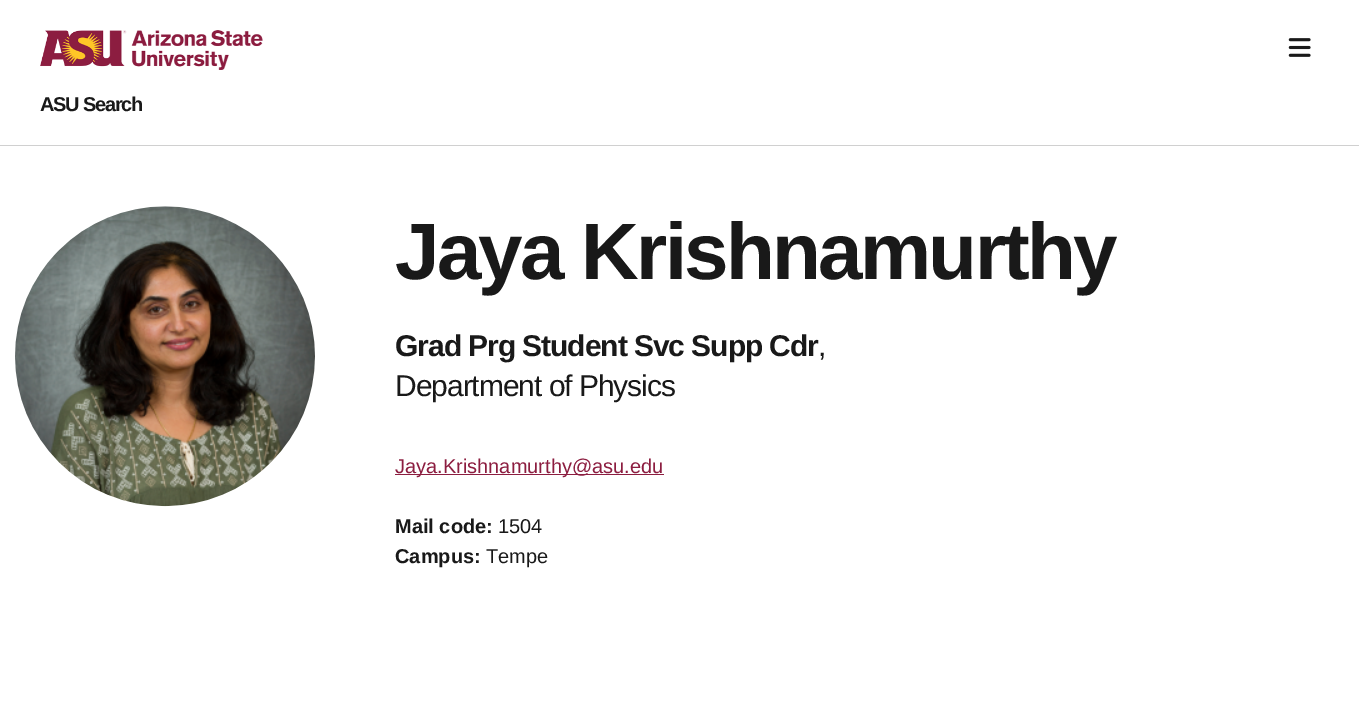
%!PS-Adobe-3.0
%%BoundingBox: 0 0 1359 718
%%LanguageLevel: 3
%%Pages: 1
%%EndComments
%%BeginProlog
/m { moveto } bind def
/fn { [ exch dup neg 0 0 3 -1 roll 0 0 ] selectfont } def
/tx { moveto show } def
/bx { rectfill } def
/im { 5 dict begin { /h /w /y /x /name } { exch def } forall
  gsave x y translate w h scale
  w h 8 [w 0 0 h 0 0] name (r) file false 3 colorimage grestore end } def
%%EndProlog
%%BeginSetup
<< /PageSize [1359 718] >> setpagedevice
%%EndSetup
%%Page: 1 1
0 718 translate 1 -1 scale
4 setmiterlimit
1 setgray
0 0 1359 718 bx
0.816 setgray
0 145 1359 1 bx
(image0.raw) 40 30 223 40 im
(image1.raw) 1288 38 23 19 im
/LiberationSans-Bold 20 fn
0.098 setgray
40 111 m -1.25 0 (ASU Search) ashow
(image2.raw) 15 206 300 301 im
/LiberationSans-Bold 80 fn
395 279 m -2.75 0 (Jaya Krishnamurthy) ashow
/LiberationSans-Bold 30 fn
395 356 m -1.05 0 (Grad Prg Student Svc Supp Cdr) ashow
/LiberationSans-Regular 30 fn
818 356 m -1.05 0 (,) ashow
395 396 m -1.05 0 (Department of Physics) ashow
0.549 0.114 0.251 setrgbcolor
395 474 269 1 bx
/LiberationSans-Regular 20 fn
(Jaya.Krishnamurthy@asu.edu) 395 473 tx
/LiberationSans-Bold 20 fn
0.098 setgray
(Mail code:) 395 533 tx
/LiberationSans-Regular 20 fn
(1504) 498 533 tx
/LiberationSans-Bold 20 fn
(Campus:) 395 563 tx
/LiberationSans-Regular 20 fn
(Tempe) 486 563 tx
showpage
%%EOF
